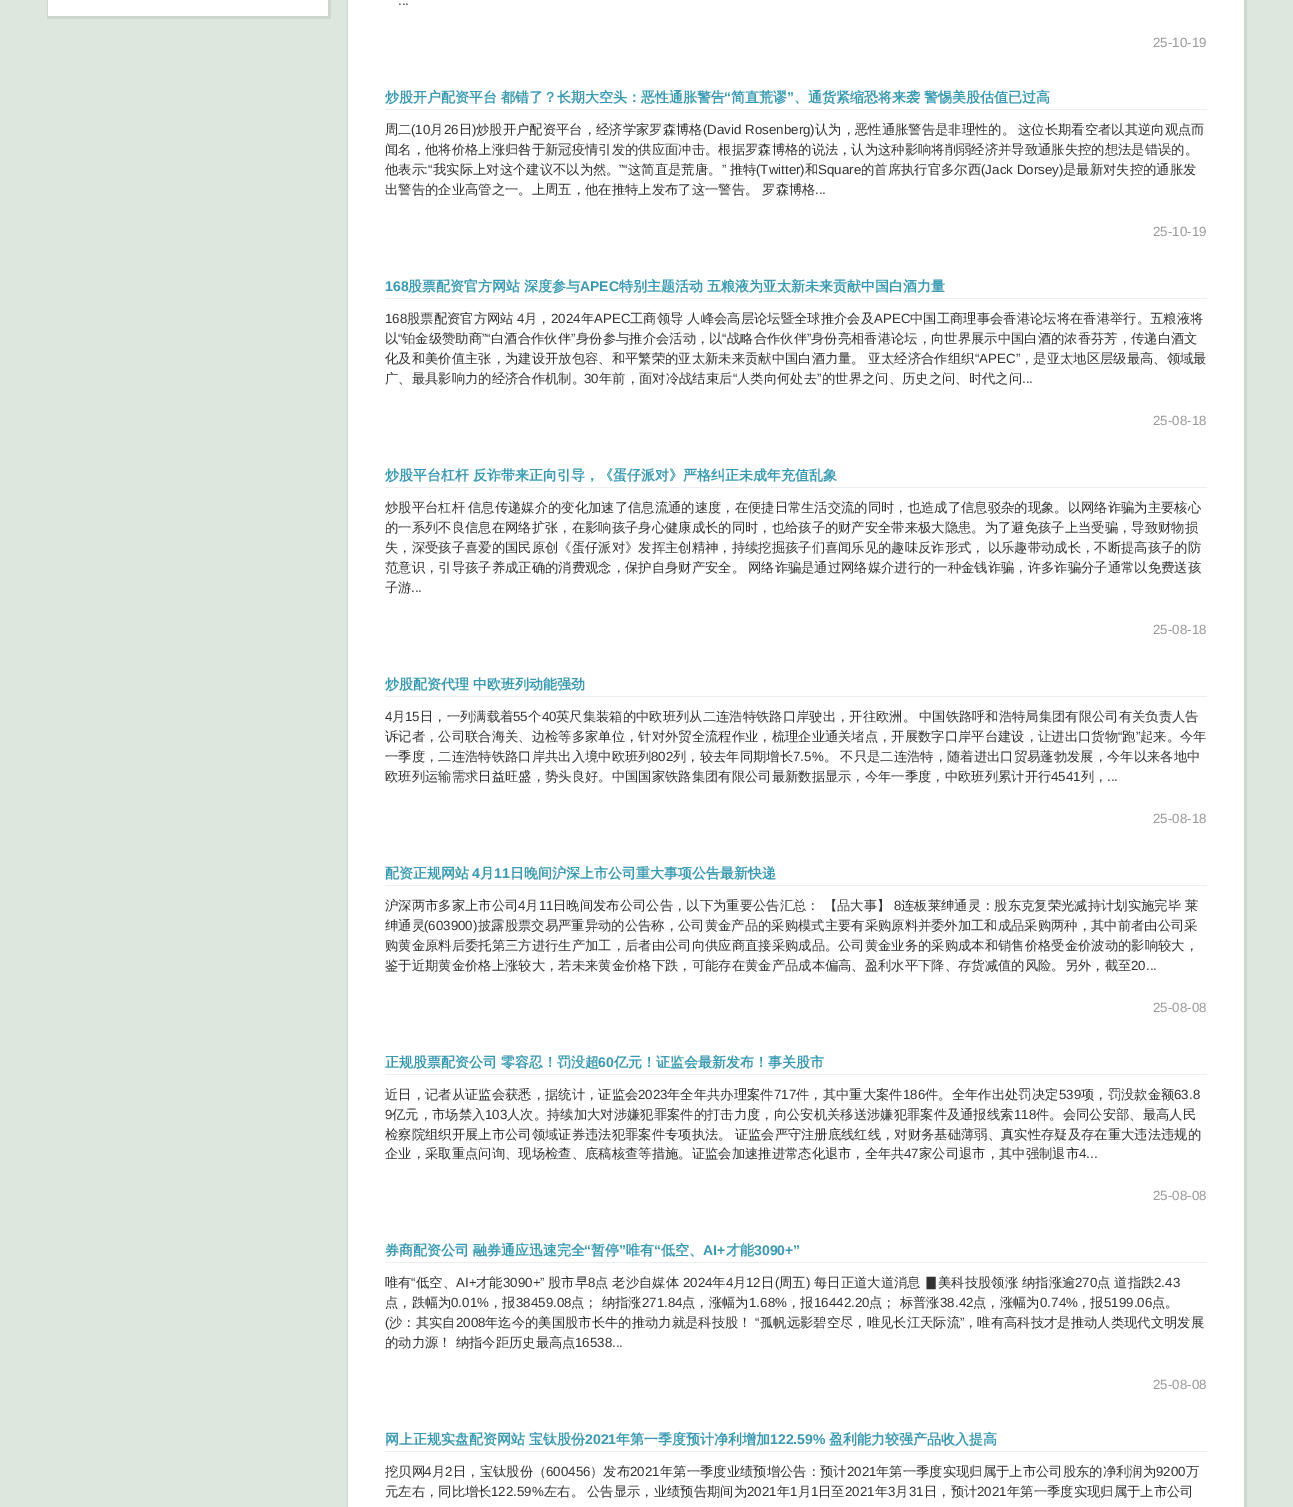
%!PS-Adobe-3.0
%%BoundingBox: 0 0 1293 1507
%%LanguageLevel: 3
%%Pages: 1
%%EndComments
%%BeginProlog
/m { moveto } bind def
/q { gsave } bind def
/Q { grestore } bind def
/fn { [ exch dup neg 0 0 3 -1 roll 0 0 ] selectfont } def
/tx { moveto show } def
/bx { rectfill } def
%%EndProlog
%%BeginSetup
<< /PageSize [1293 1507] >> setpagedevice
%%EndSetup
%%Page: 1 1
0 1507 translate 1 -1 scale
4 setmiterlimit
0.871 0.906 0.871 setrgbcolor
0 0 1293 1507 bx
1 setgray
48 0 280 16 bx
0.808 0.843 0.808 setrgbcolor
328 0 3 19 bx
47 16 284 3 bx
47 0 1 19 bx
1 setgray
348 0 896 1507 bx
0.808 0.843 0.808 setrgbcolor
1244 0 3 1507 bx
347 0 1 1507 bx
/LiberationSans-Regular 13.33 fn
0.2 setgray
(...) 398 5 tx
0.6 setgray
(25-10-19) 1153 47 tx
0.933 setgray
385 109 822 1 bx
/WenQuanYiZenHei-Bold 14 fn
0.224 0.604 0.698 setrgbcolor
(炒股开户配资平台 都错了？长期大空头：恶性通胀警告) 385 102 tx
/LiberationSans-Bold 14 fn
(“) 724 102 tx
/WenQuanYiZenHei-Bold 14 fn
(简直荒谬) 731 102 tx
/LiberationSans-Bold 14 fn
(”) 787 102 tx
/WenQuanYiZenHei-Bold 14 fn
(、通货紧缩恐将来袭 警惕美股估值已过高) 794 102 tx
/WenQuanYiZenHei-Medium 13.33 fn
0.2 setgray
(周二) 385 134 tx
/LiberationSans-Regular 13.33 fn
(\(10) 411 134 tx
/WenQuanYiZenHei-Medium 13.33 fn
(月) 430 134 tx
/LiberationSans-Regular 13.33 fn
(26) 444 134 tx
/WenQuanYiZenHei-Medium 13.33 fn
(日) 459 134 tx
/LiberationSans-Regular 13.33 fn
(\)) 472 134 tx
/WenQuanYiZenHei-Medium 13.33 fn
(炒股开户配资平台，经济学家罗森博格) 476 134 tx
/LiberationSans-Regular 13.33 fn
(\(David Rosenberg\)) 703 134 tx
/WenQuanYiZenHei-Medium 13.33 fn
(认为，恶性通胀警告是非理性的。) 815 134 tx
(这位长期看空者以其逆向观点而) 1018 134 tx
(闻名，他将价格上涨归咎于新冠疫情引发的供应面冲击。根据罗森博格的说法，认为这种影响将削弱经济并导致通胀失控的想法是错误的。) 385 154 tx
(他表示) 385 174 tx
/LiberationSans-Regular 13.33 fn
(:“) 424 174 tx
/WenQuanYiZenHei-Medium 13.33 fn
(我实际上对这个建议不以为然。) 433 174 tx
/LiberationSans-Regular 13.33 fn
(”“) 619 174 tx
/WenQuanYiZenHei-Medium 13.33 fn
(这简直是荒唐。) 628 174 tx
/LiberationSans-Regular 13.33 fn
(”) 722 174 tx
/WenQuanYiZenHei-Medium 13.33 fn
(推特) 730 174 tx
/LiberationSans-Regular 13.33 fn
(\(Twitter\)) 756 174 tx
/WenQuanYiZenHei-Medium 13.33 fn
(和) 805 174 tx
/LiberationSans-Regular 13.33 fn
(Square) 818 174 tx
/WenQuanYiZenHei-Medium 13.33 fn
(的首席执行官多尔西) 861 174 tx
/LiberationSans-Regular 13.33 fn
(\(Jack Dorsey\)) 981 174 tx
/WenQuanYiZenHei-Medium 13.33 fn
(是最新对失控的通胀发) 1063 174 tx
(出警告的企业高管之一。上周五，他在推特上发布了这一警告。 罗森博格) 385 194 tx
/LiberationSans-Regular 13.33 fn
(...) 815 194 tx
0.6 setgray
(25-10-19) 1153 236 tx
0.933 setgray
385 298 822 1 bx
/LiberationSans-Bold 14 fn
0.224 0.604 0.698 setrgbcolor
(168) 385 291 tx
/WenQuanYiZenHei-Bold 14 fn
(股票配资官方网站 深度参与) 408 291 tx
/LiberationSans-Bold 14 fn
(APEC) 580 291 tx
/WenQuanYiZenHei-Bold 14 fn
(特别主题活动 五粮液为亚太新未来贡献中国白酒力量) 619 291 tx
/LiberationSans-Regular 13.33 fn
0.2 setgray
(168) 385 323 tx
/WenQuanYiZenHei-Medium 13.33 fn
(股票配资官方网站) 407 323 tx
/LiberationSans-Regular 13.33 fn
(4) 517 323 tx
/WenQuanYiZenHei-Medium 13.33 fn
(月，) 524 323 tx
/LiberationSans-Regular 13.33 fn
(2024) 551 323 tx
/WenQuanYiZenHei-Medium 13.33 fn
(年) 581 323 tx
/LiberationSans-Regular 13.33 fn
(APEC) 594 323 tx
/WenQuanYiZenHei-Medium 13.33 fn
(工商领导 人峰会高层论坛暨全球推介会及) 630 323 tx
/LiberationSans-Regular 13.33 fn
(APEC) 874 323 tx
/WenQuanYiZenHei-Medium 13.33 fn
(中国工商理事会香港论坛将在香港举行。五粮液将) 910 323 tx
(以) 385 343 tx
/LiberationSans-Regular 13.33 fn
(“) 398 343 tx
/WenQuanYiZenHei-Medium 13.33 fn
(铂金级赞助商) 402 343 tx
/LiberationSans-Regular 13.33 fn
(”“) 482 343 tx
/WenQuanYiZenHei-Medium 13.33 fn
(白酒合作伙伴) 491 343 tx
/LiberationSans-Regular 13.33 fn
(”) 571 343 tx
/WenQuanYiZenHei-Medium 13.33 fn
(身份参与推介会活动，以) 576 343 tx
/LiberationSans-Regular 13.33 fn
(“) 722 343 tx
/WenQuanYiZenHei-Medium 13.33 fn
(战略合作伙伴) 727 343 tx
/LiberationSans-Regular 13.33 fn
(”) 807 343 tx
/WenQuanYiZenHei-Medium 13.33 fn
(身份亮相香港论坛，向世界展示中国白酒的浓香芬芳，传递白酒文) 811 343 tx
385 363 m -1 0 32 (化及和美价值主张，为建设开放包容、和平繁荣的亚太新未来贡献中国白酒力量。 亚太经济合作组织) widthshow
/LiberationSans-Regular 13.33 fn
(“APEC”) 975 363 tx
/WenQuanYiZenHei-Medium 13.33 fn
(，是亚太地区层级最高、领域最) 1020 363 tx
(广、最具影响力的经济合作机制。) 385 383 tx
/LiberationSans-Regular 13.33 fn
(30) 584 383 tx
/WenQuanYiZenHei-Medium 13.33 fn
(年前，面对冷战结束后) 599 383 tx
/LiberationSans-Regular 13.33 fn
(“) 733 383 tx
/WenQuanYiZenHei-Medium 13.33 fn
(人类向何处去) 737 383 tx
/LiberationSans-Regular 13.33 fn
(”) 817 383 tx
/WenQuanYiZenHei-Medium 13.33 fn
(的世界之问、历史之问、时代之问) 822 383 tx
/LiberationSans-Regular 13.33 fn
(...) 1022 383 tx
0.6 setgray
(25-08-18) 1153 425 tx
0.933 setgray
385 487 822 1 bx
/WenQuanYiZenHei-Bold 14 fn
0.224 0.604 0.698 setrgbcolor
(炒股平台杠杆 反诈带来正向引导，《蛋仔派对》严格纠正未成年充值乱象) 385 480 tx
/WenQuanYiZenHei-Medium 13.33 fn
0.2 setgray
385 512 m -1 0 32 (炒股平台杠杆 信息传递媒介的变化加速了信息流通的速度，在便捷日常生活交流的同时，也造成了信息驳杂的现象。以网络诈骗为主要核心) widthshow
(的一系列不良信息在网络扩张，在影响孩子身心健康成长的同时，也给孩子的财产安全带来极大隐患。为了避免孩子上当受骗，导致财物损) 385 532 tx
385 552 m -1 0 32 (失，深受孩子喜爱的国民原创《蛋仔派对》发挥主创精神，持续挖掘孩子们喜闻乐见的趣味反诈形式， 以乐趣带动成长，不断提高孩子的防) widthshow
385 572 m -1 0 32 (范意识，引导孩子养成正确的消费观念，保护自身财产安全。 网络诈骗是通过网络媒介进行的一种金钱诈骗，许多诈骗分子通常以免费送孩) widthshow
(子游) 385 592 tx
/LiberationSans-Regular 13.33 fn
(...) 411 592 tx
0.6 setgray
(25-08-18) 1153 634 tx
0.933 setgray
385 696 822 1 bx
/WenQuanYiZenHei-Bold 14 fn
0.224 0.604 0.698 setrgbcolor
(炒股配资代理 中欧班列动能强劲) 385 689 tx
/LiberationSans-Regular 13.33 fn
0.2 setgray
(4) 385 721 tx
/WenQuanYiZenHei-Medium 13.33 fn
(月) 392 721 tx
/LiberationSans-Regular 13.33 fn
(15) 405 721 tx
/WenQuanYiZenHei-Medium 13.33 fn
(日，一列满载着) 420 721 tx
/LiberationSans-Regular 13.33 fn
(55) 513 721 tx
/WenQuanYiZenHei-Medium 13.33 fn
(个) 528 721 tx
/LiberationSans-Regular 13.33 fn
(40) 542 721 tx
/WenQuanYiZenHei-Medium 13.33 fn
556 721 m -1 0 32 (英尺集装箱的中欧班列从二连浩特铁路口岸驶出，开往欧洲。 中国铁路呼和浩特局集团有限公司有关负责人告) widthshow
(诉记者，公司联合海关、边检等多家单位，针对外贸全流程作业，梳理企业通关堵点，开展数字口岸平台建设，让进出口货物) 385 741 tx
/LiberationSans-Regular 13.33 fn
(“) 1118 741 tx
/WenQuanYiZenHei-Medium 13.33 fn
(跑) 1122 741 tx
/LiberationSans-Regular 13.33 fn
(”) 1136 741 tx
/WenQuanYiZenHei-Medium 13.33 fn
(起来。今年) 1140 741 tx
(一季度，二连浩特铁路口岸共出入境中欧班列) 385 761 tx
/LiberationSans-Regular 13.33 fn
(802) 651 761 tx
/WenQuanYiZenHei-Medium 13.33 fn
(列，较去年同期增长) 673 761 tx
/LiberationSans-Regular 13.33 fn
(7.5%) 793 761 tx
/WenQuanYiZenHei-Medium 13.33 fn
824 761 m -1 0 32 (。 不只是二连浩特，随着进出口贸易蓬勃发展，今年以来各地中) widthshow
(欧班列运输需求日益旺盛，势头良好。中国国家铁路集团有限公司最新数据显示，今年一季度，中欧班列累计开行) 385 781 tx
/LiberationSans-Regular 13.33 fn
(4541) 1051 781 tx
/WenQuanYiZenHei-Medium 13.33 fn
(列，) 1081 781 tx
/LiberationSans-Regular 13.33 fn
(...) 1107 781 tx
0.6 setgray
(25-08-18) 1153 823 tx
0.933 setgray
385 885 822 1 bx
/WenQuanYiZenHei-Bold 14 fn
0.224 0.604 0.698 setrgbcolor
(配资正规网站) 385 878 tx
/LiberationSans-Bold 14 fn
(4) 472 878 tx
/WenQuanYiZenHei-Bold 14 fn
(月) 480 878 tx
/LiberationSans-Bold 14 fn
(11) 494 878 tx
/WenQuanYiZenHei-Bold 14 fn
(日晚间沪深上市公司重大事项公告最新快递) 510 878 tx
/WenQuanYiZenHei-Medium 13.33 fn
0.2 setgray
(沪深两市多家上市公司) 385 910 tx
/LiberationSans-Regular 13.33 fn
(4) 518 910 tx
/WenQuanYiZenHei-Medium 13.33 fn
(月) 525 910 tx
/LiberationSans-Regular 13.33 fn
(11) 539 910 tx
/WenQuanYiZenHei-Medium 13.33 fn
(日晚间发布公司公告，以下为重要公告汇总： 【品大事】) 553 910 tx
/LiberationSans-Regular 13.33 fn
(8) 894 910 tx
/WenQuanYiZenHei-Medium 13.33 fn
(连板莱绅通灵：股东克复荣光减持计划实施完毕 莱) 901 910 tx
q
385 896 822 100 rectclip
(绅通灵) 385 930 tx
Q
/LiberationSans-Regular 13.33 fn
(\(603900\)) 424 930 tx
/WenQuanYiZenHei-Medium 13.33 fn
(披露股票交易严重异动的公告称，公司黄金产品的采购模式主要有采购原料并委外加工和成品采购两种，其中前者由公司采) 478 930 tx
(购黄金原料后委托第三方进行生产加工，后者由公司向供应商直接采购成品。公司黄金业务的采购成本和销售价格受金价波动的影响较大，) 385 950 tx
(鉴于近期黄金价格上涨较大，若未来黄金价格下跌，可能存在黄金产品成本偏高、盈利水平下降、存货减值的风险。另外，截至) 385 970 tx
/LiberationSans-Regular 13.33 fn
(20...) 1131 970 tx
0.6 setgray
(25-08-08) 1153 1012 tx
0.933 setgray
385 1074 822 1 bx
/WenQuanYiZenHei-Bold 14 fn
0.224 0.604 0.698 setrgbcolor
(正规股票配资公司 零容忍！罚没超) 385 1067 tx
/LiberationSans-Bold 14 fn
(60) 598 1067 tx
/WenQuanYiZenHei-Bold 14 fn
(亿元！证监会最新发布！事关股市) 614 1067 tx
/WenQuanYiZenHei-Medium 13.33 fn
0.2 setgray
(近日，记者从证监会获悉，据统计，证监会) 385 1099 tx
/LiberationSans-Regular 13.33 fn
(2023) 638 1099 tx
/WenQuanYiZenHei-Medium 13.33 fn
(年全年共办理案件) 667 1099 tx
/LiberationSans-Regular 13.33 fn
(717) 774 1099 tx
/WenQuanYiZenHei-Medium 13.33 fn
(件，其中重大案件) 796 1099 tx
/LiberationSans-Regular 13.33 fn
(186) 903 1099 tx
/WenQuanYiZenHei-Medium 13.33 fn
(件。全年作出处罚决定) 925 1099 tx
/LiberationSans-Regular 13.33 fn
(539) 1059 1099 tx
/WenQuanYiZenHei-Medium 13.33 fn
(项，罚没款金额) 1081 1099 tx
/LiberationSans-Regular 13.33 fn
(63.8) 1174 1099 tx
(9) 385 1119 tx
/WenQuanYiZenHei-Medium 13.33 fn
(亿元，市场禁入) 392 1119 tx
/LiberationSans-Regular 13.33 fn
(103) 485 1119 tx
/WenQuanYiZenHei-Medium 13.33 fn
(人次。持续加大对涉嫌犯罪案件的打击力度，向公安机关移送涉嫌犯罪案件及通报线索) 507 1119 tx
/LiberationSans-Regular 13.33 fn
(118) 1014 1119 tx
/WenQuanYiZenHei-Medium 13.33 fn
(件。会同公安部、最高人民) 1036 1119 tx
385 1139 m -1 0 32 (检察院组织开展上市公司领域证券违法犯罪案件专项执法。 证监会严守注册底线红线，对财务基础薄弱、真实性存疑及存在重大违法违规的) widthshow
(企业，采取重点问询、现场检查、底稿核查等措施。证监会加速推进常态化退市，全年共) 385 1158 tx
/LiberationSans-Regular 13.33 fn
(47) 904 1158 tx
/WenQuanYiZenHei-Medium 13.33 fn
(家公司退市，其中强制退市) 919 1158 tx
/LiberationSans-Regular 13.33 fn
(4...) 1079 1158 tx
0.6 setgray
(25-08-08) 1153 1200 tx
0.933 setgray
385 1262 822 1 bx
/WenQuanYiZenHei-Bold 14 fn
0.224 0.604 0.698 setrgbcolor
(券商配资公司 融券通应迅速完全) 385 1255 tx
/LiberationSans-Bold 14 fn
(“) 584 1255 tx
/WenQuanYiZenHei-Bold 14 fn
(暂停) 591 1255 tx
/LiberationSans-Bold 14 fn
(”) 619 1255 tx
/WenQuanYiZenHei-Bold 14 fn
(唯有) 626 1255 tx
/LiberationSans-Bold 14 fn
(“) 654 1255 tx
/WenQuanYiZenHei-Bold 14 fn
(低空、) 661 1255 tx
/LiberationSans-Bold 14 fn
(AI+) 703 1255 tx
/WenQuanYiZenHei-Bold 14 fn
(才能) 726 1255 tx
/LiberationSans-Bold 14 fn
(3090+”) 754 1255 tx
/WenQuanYiZenHei-Medium 13.33 fn
0.2 setgray
(唯有) 385 1287 tx
/LiberationSans-Regular 13.33 fn
(“) 411 1287 tx
/WenQuanYiZenHei-Medium 13.33 fn
(低空、) 416 1287 tx
/LiberationSans-Regular 13.33 fn
(AI+) 456 1287 tx
/WenQuanYiZenHei-Medium 13.33 fn
(才能) 476 1287 tx
/LiberationSans-Regular 13.33 fn
(3090+”) 503 1287 tx
/WenQuanYiZenHei-Medium 13.33 fn
(股市早) 548 1287 tx
/LiberationSans-Regular 13.33 fn
(8) 588 1287 tx
/WenQuanYiZenHei-Medium 13.33 fn
(点 老沙自媒体) 595 1287 tx
/LiberationSans-Regular 13.33 fn
(2024) 683 1287 tx
/WenQuanYiZenHei-Medium 13.33 fn
(年) 712 1287 tx
/LiberationSans-Regular 13.33 fn
(4) 726 1287 tx
/WenQuanYiZenHei-Medium 13.33 fn
(月) 733 1287 tx
/LiberationSans-Regular 13.33 fn
(12) 746 1287 tx
/WenQuanYiZenHei-Medium 13.33 fn
(日) 761 1287 tx
/LiberationSans-Regular 13.33 fn
(\() 775 1287 tx
/WenQuanYiZenHei-Medium 13.33 fn
(周五) 779 1287 tx
/LiberationSans-Regular 13.33 fn
(\)) 806 1287 tx
/WenQuanYiZenHei-Medium 13.33 fn
(每日正道大道消息 ▊美科技股领涨 纳指涨逾) 814 1287 tx
/LiberationSans-Regular 13.33 fn
(270) 1075 1287 tx
/WenQuanYiZenHei-Medium 13.33 fn
(点 道指跌) 1097 1287 tx
/LiberationSans-Regular 13.33 fn
(2.43) 1154 1287 tx
/WenQuanYiZenHei-Medium 13.33 fn
(点，跌幅为) 385 1307 tx
/LiberationSans-Regular 13.33 fn
(0.01%) 451 1307 tx
/WenQuanYiZenHei-Medium 13.33 fn
(，报) 489 1307 tx
/LiberationSans-Regular 13.33 fn
(38459.08) 516 1307 tx
/WenQuanYiZenHei-Medium 13.33 fn
(点； 纳指涨) 571 1307 tx
/LiberationSans-Regular 13.33 fn
(271.84) 642 1307 tx
/WenQuanYiZenHei-Medium 13.33 fn
(点，涨幅为) 682 1307 tx
/LiberationSans-Regular 13.33 fn
(1.68%) 749 1307 tx
/WenQuanYiZenHei-Medium 13.33 fn
(，报) 787 1307 tx
/LiberationSans-Regular 13.33 fn
(16442.20) 814 1307 tx
/WenQuanYiZenHei-Medium 13.33 fn
(点； 标普涨) 869 1307 tx
/LiberationSans-Regular 13.33 fn
(38.42) 940 1307 tx
/WenQuanYiZenHei-Medium 13.33 fn
(点，涨幅为) 973 1307 tx
/LiberationSans-Regular 13.33 fn
(0.74%) 1040 1307 tx
/WenQuanYiZenHei-Medium 13.33 fn
(，报) 1077 1307 tx
/LiberationSans-Regular 13.33 fn
(5199.06) 1104 1307 tx
/WenQuanYiZenHei-Medium 13.33 fn
(点。) 1152 1307 tx
/LiberationSans-Regular 13.33 fn
(\() 385 1327 tx
/WenQuanYiZenHei-Medium 13.33 fn
(沙：其实自) 389 1327 tx
/LiberationSans-Regular 13.33 fn
(2008) 456 1327 tx
/WenQuanYiZenHei-Medium 13.33 fn
(年迄今的美国股市长牛的推动力就是科技股！) 485 1327 tx
/LiberationSans-Regular 13.33 fn
(“) 755 1327 tx
/WenQuanYiZenHei-Medium 13.33 fn
(孤帆远影碧空尽，唯见长江天际流) 760 1327 tx
/LiberationSans-Regular 13.33 fn
(”) 960 1327 tx
/WenQuanYiZenHei-Medium 13.33 fn
(，唯有高科技才是推动人类现代文明发展) 964 1327 tx
(的动力源！ 纳指今距历史最高点) 385 1347 tx
/LiberationSans-Regular 13.33 fn
(16538...) 575 1347 tx
0.6 setgray
(25-08-08) 1153 1389 tx
0.933 setgray
385 1451 822 1 bx
/WenQuanYiZenHei-Bold 14 fn
0.224 0.604 0.698 setrgbcolor
(网上正规实盘配资网站 宝钛股份) 385 1444 tx
/LiberationSans-Bold 14 fn
(2021) 585 1444 tx
/WenQuanYiZenHei-Bold 14 fn
(年第一季度预计净利增加) 616 1444 tx
/LiberationSans-Bold 14 fn
(122.59%) 770 1444 tx
/WenQuanYiZenHei-Bold 14 fn
(盈利能力较强产品收入提高) 829 1444 tx
/WenQuanYiZenHei-Medium 13.33 fn
0.2 setgray
(挖贝网) 385 1476 tx
/LiberationSans-Regular 13.33 fn
(4) 424 1476 tx
/WenQuanYiZenHei-Medium 13.33 fn
(月) 432 1476 tx
/LiberationSans-Regular 13.33 fn
(2) 445 1476 tx
/WenQuanYiZenHei-Medium 13.33 fn
(日，宝钛股份（) 453 1476 tx
/LiberationSans-Regular 13.33 fn
(600456) 546 1476 tx
/WenQuanYiZenHei-Medium 13.33 fn
(）发布) 590 1476 tx
/LiberationSans-Regular 13.33 fn
(2021) 630 1476 tx
/WenQuanYiZenHei-Medium 13.33 fn
(年第一季度业绩预增公告：预计) 660 1476 tx
/LiberationSans-Regular 13.33 fn
(2021) 847 1476 tx
/WenQuanYiZenHei-Medium 13.33 fn
(年第一季度实现归属于上市公司股东的净利润为) 876 1476 tx
/LiberationSans-Regular 13.33 fn
(9200) 1156 1476 tx
/WenQuanYiZenHei-Medium 13.33 fn
(万) 1186 1476 tx
(元左右，同比增长) 385 1496 tx
/LiberationSans-Regular 13.33 fn
(122.59%) 491 1496 tx
/WenQuanYiZenHei-Medium 13.33 fn
544 1496 m -1 0 32 (左右。 公告显示，业绩预告期间为) widthshow
/LiberationSans-Regular 13.33 fn
(2021) 747 1496 tx
/WenQuanYiZenHei-Medium 13.33 fn
(年) 777 1496 tx
/LiberationSans-Regular 13.33 fn
(1) 790 1496 tx
/WenQuanYiZenHei-Medium 13.33 fn
(月) 798 1496 tx
/LiberationSans-Regular 13.33 fn
(1) 811 1496 tx
/WenQuanYiZenHei-Medium 13.33 fn
(日至) 818 1496 tx
/LiberationSans-Regular 13.33 fn
(2021) 845 1496 tx
/WenQuanYiZenHei-Medium 13.33 fn
(年) 875 1496 tx
/LiberationSans-Regular 13.33 fn
(3) 888 1496 tx
/WenQuanYiZenHei-Medium 13.33 fn
(月) 895 1496 tx
/LiberationSans-Regular 13.33 fn
(31) 909 1496 tx
/WenQuanYiZenHei-Medium 13.33 fn
(日，预计) 924 1496 tx
/LiberationSans-Regular 13.33 fn
(2021) 977 1496 tx
/WenQuanYiZenHei-Medium 13.33 fn
(年第一季度实现归属于上市公司) 1007 1496 tx
showpage
%%EOF
